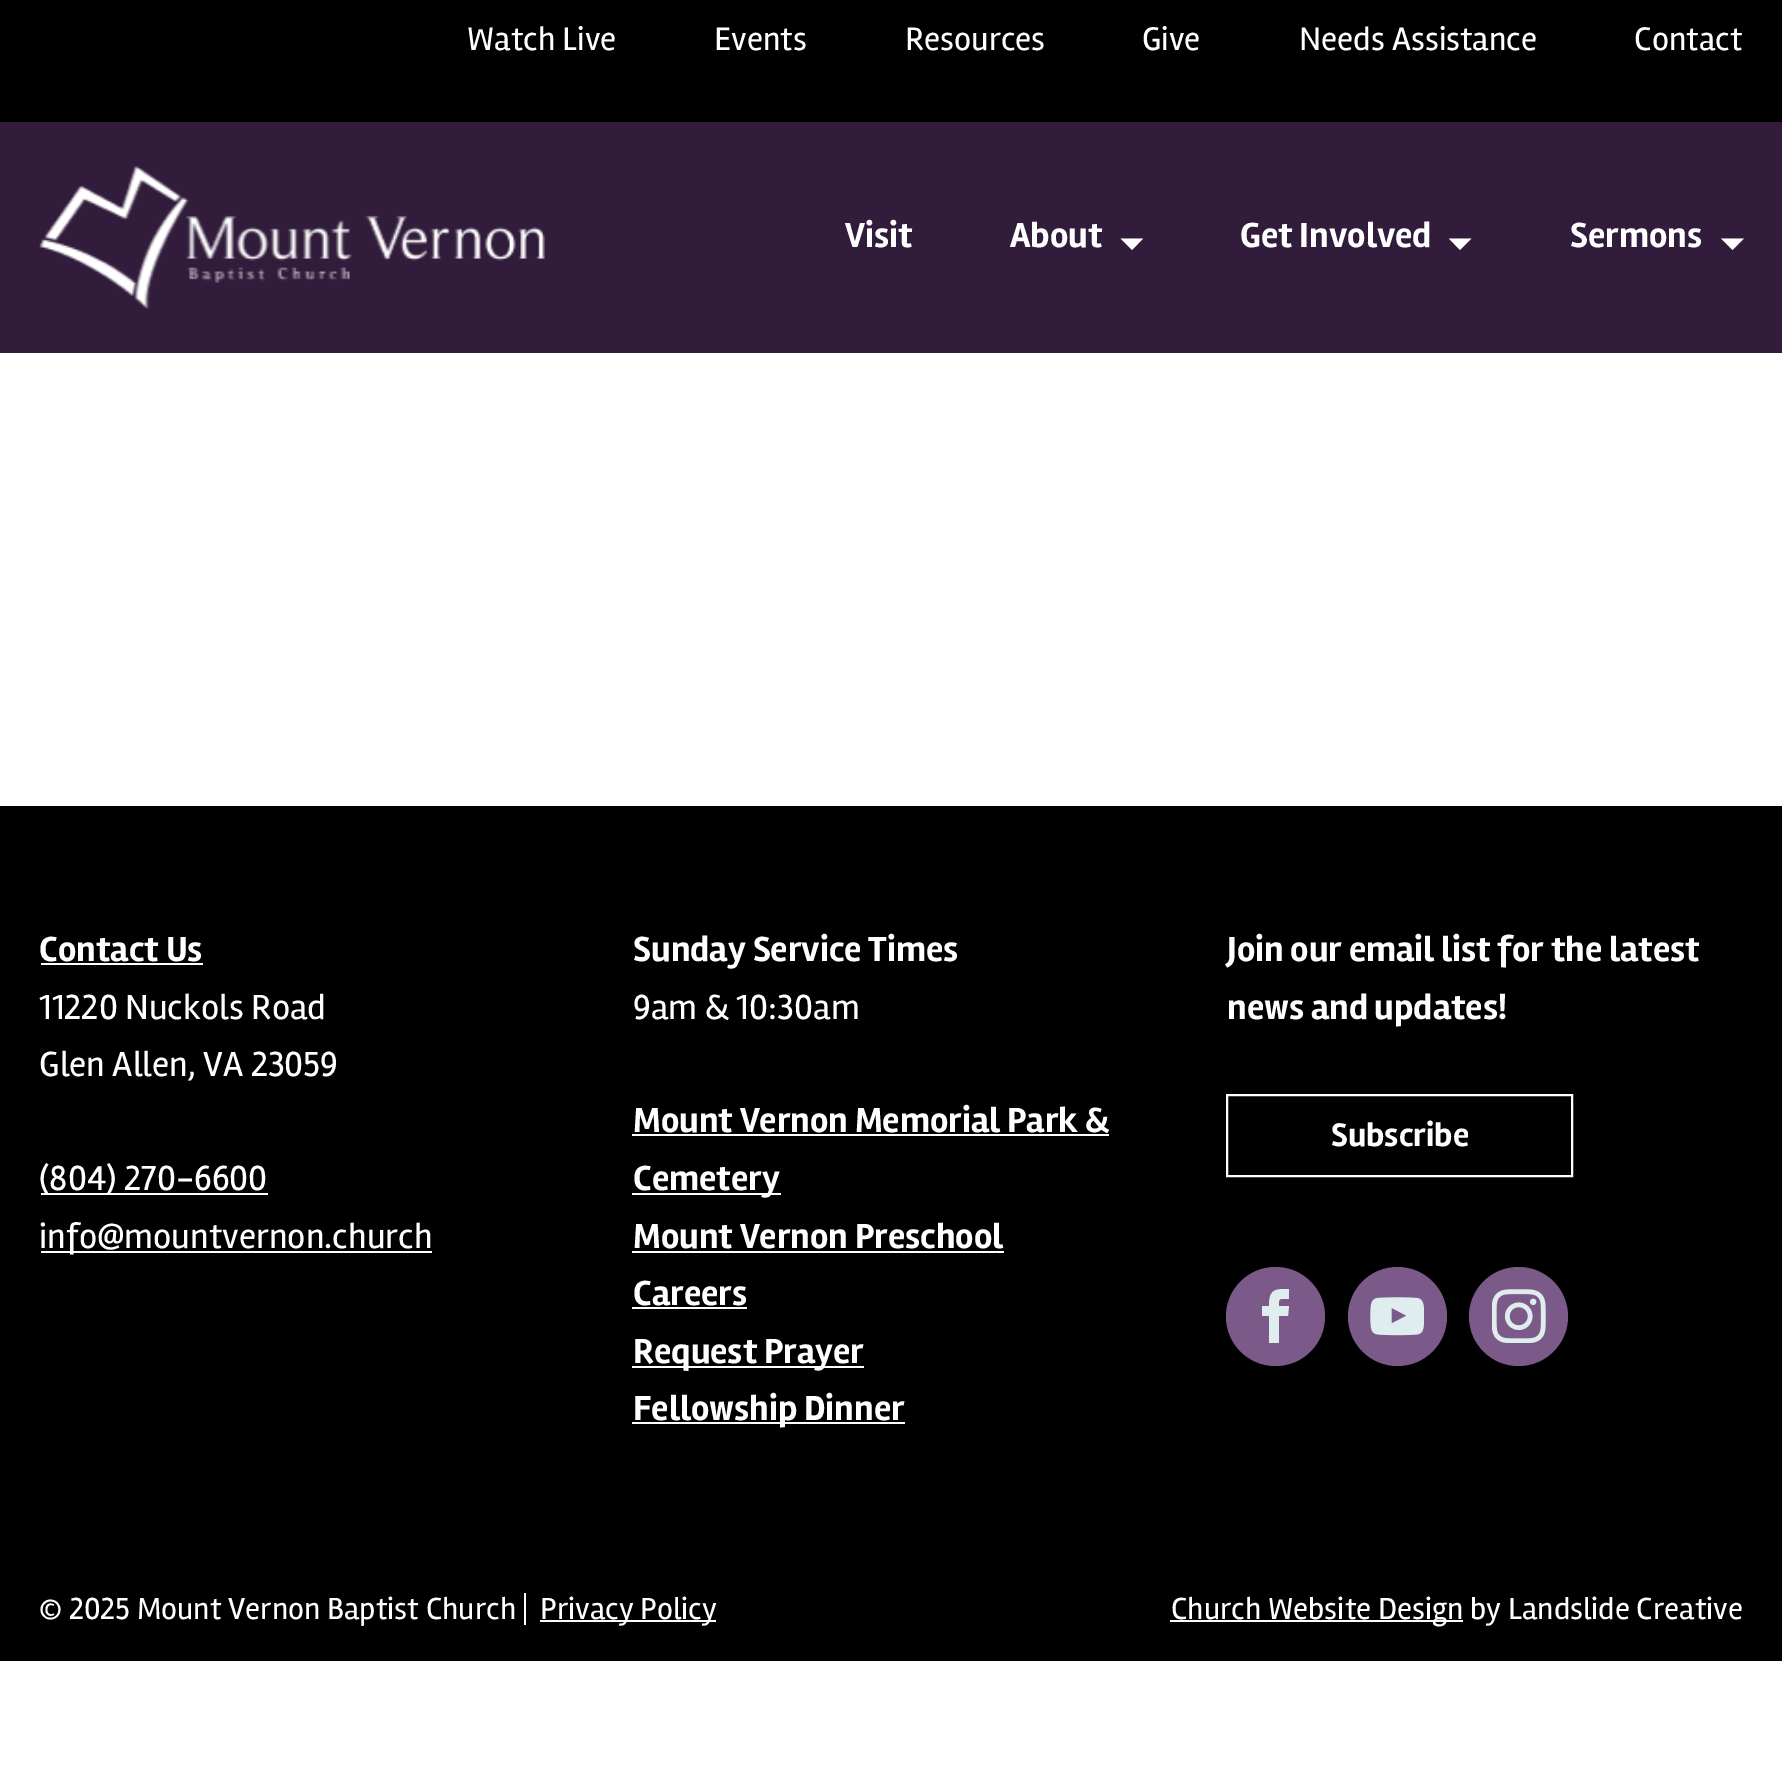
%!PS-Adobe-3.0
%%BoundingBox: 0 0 1782 1767
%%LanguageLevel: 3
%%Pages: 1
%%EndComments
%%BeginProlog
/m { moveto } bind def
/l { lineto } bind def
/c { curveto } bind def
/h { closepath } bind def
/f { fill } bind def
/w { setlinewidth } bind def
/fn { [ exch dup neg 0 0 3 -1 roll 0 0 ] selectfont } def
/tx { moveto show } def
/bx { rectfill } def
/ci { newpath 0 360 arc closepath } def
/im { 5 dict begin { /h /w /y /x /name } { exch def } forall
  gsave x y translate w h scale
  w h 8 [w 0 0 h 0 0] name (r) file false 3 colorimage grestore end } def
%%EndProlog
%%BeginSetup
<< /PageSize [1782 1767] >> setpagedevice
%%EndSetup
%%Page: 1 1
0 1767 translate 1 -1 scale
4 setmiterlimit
1 setgray
0 0 1782 1767 bx
0 setgray
0 0 1782 122 bx
/Rambla-Regular 33.75 fn
1 setgray
(Watch Live) 467 50 tx
(Events) 714 50 tx
(Resources) 905 50 tx
(Give) 1142 50 tx
(Needs Assistance) 1299 50 tx
(Contact) 1634 50 tx
0.192 0.11 0.231 setrgbcolor
0 122 1782 231 bx
(image0.raw) 39 166 506 143 im
/Rambla-Bold 36 fn
1 setgray
(Visit) 845 247 tx
(About) 1010 247 tx
1120.5 238.5 m 1143 238.5 l 1132 250 l h f
(Get Involved) 1240 247 tx
1449 238.5 m 1471.5 238.5 l 1460 250 l h f
(Sermons) 1570 247 tx
1721 238.5 m 1744 238.5 l 1732.5 250 l h f
0 setgray
0 806 1782 855 bx
1 setgray
(Contact Us) 39 961 tx
41 963 162 2 bx
/Rambla-Regular 36 fn
(11220 Nuckols Road) 39 1019 tx
(Glen Allen, VA 23059) 39 1076 tx
41 1193 227 2 bx
(\(804\) 270-6600) 39 1190 tx
41 1251 391 2 bx
(info@mountvernon.church) 39 1248 tx
/Rambla-Bold 36 fn
(Sunday Service Times) 633 961 tx
/Rambla-Regular 36 fn
(9am & 10:30am) 633 1019 tx
/Rambla-Bold 36 fn
(Mount Vernon Memorial Park &) 633 1132 tx
632 1134 477 2 bx
632 1193 149 2 bx
(Cemetery) 633 1190 tx
(Mount Vernon Preschool) 633 1248 tx
632 1251 372 2 bx
(Careers) 633 1305 tx
632 1307 115 2 bx
632 1366 232 2 bx
(Request Prayer) 633 1363 tx
632 1422 273 2 bx
(Fellowship Dinner) 633 1420 tx
(Join our email list for the latest) 1227 961 tx
(news and updates!) 1227 1019 tx
2 w
1227 1095 345 81 rectstroke
/Rambla-Bold 33.75 fn
(Subscribe) 1331 1146 tx
0.482 0.353 0.541 setrgbcolor
1275.5 1316.5 49.5 ci f
0.878 0.929 0.937 setrgbcolor
1281 1299 m 1289 1299 l 1289 1289 l 1275 1289 1269 1289 1269 1306 c 1262 1306 l 1262 1316 l 1269 1316 l 1269 1343 l 1279 1343 l 1279 1316 l 1288 1316 l 1289 1306 l 1279 1306 l 1279 1305 1278 1299 1281 1299 c h f
0.482 0.353 0.541 setrgbcolor
1397.5 1316.5 49.5 ci f
(image1.raw) 1370 1297 54 39 im
1518.5 1316.5 49.5 ci f
(image2.raw) 1492 1289 54 54 im
/Rambla-Regular 31.5 fn
1 setgray
(© 2025 Mount Vernon Baptist Church) 39 1619 tx
524 1593 2 32 bx
540 1620 176 2 bx
(Privacy Policy) 540 1619 tx
1170 1620 293 2 bx
(Church Website Design by Landslide Creative) 1171 1619 tx
showpage
%%EOF
